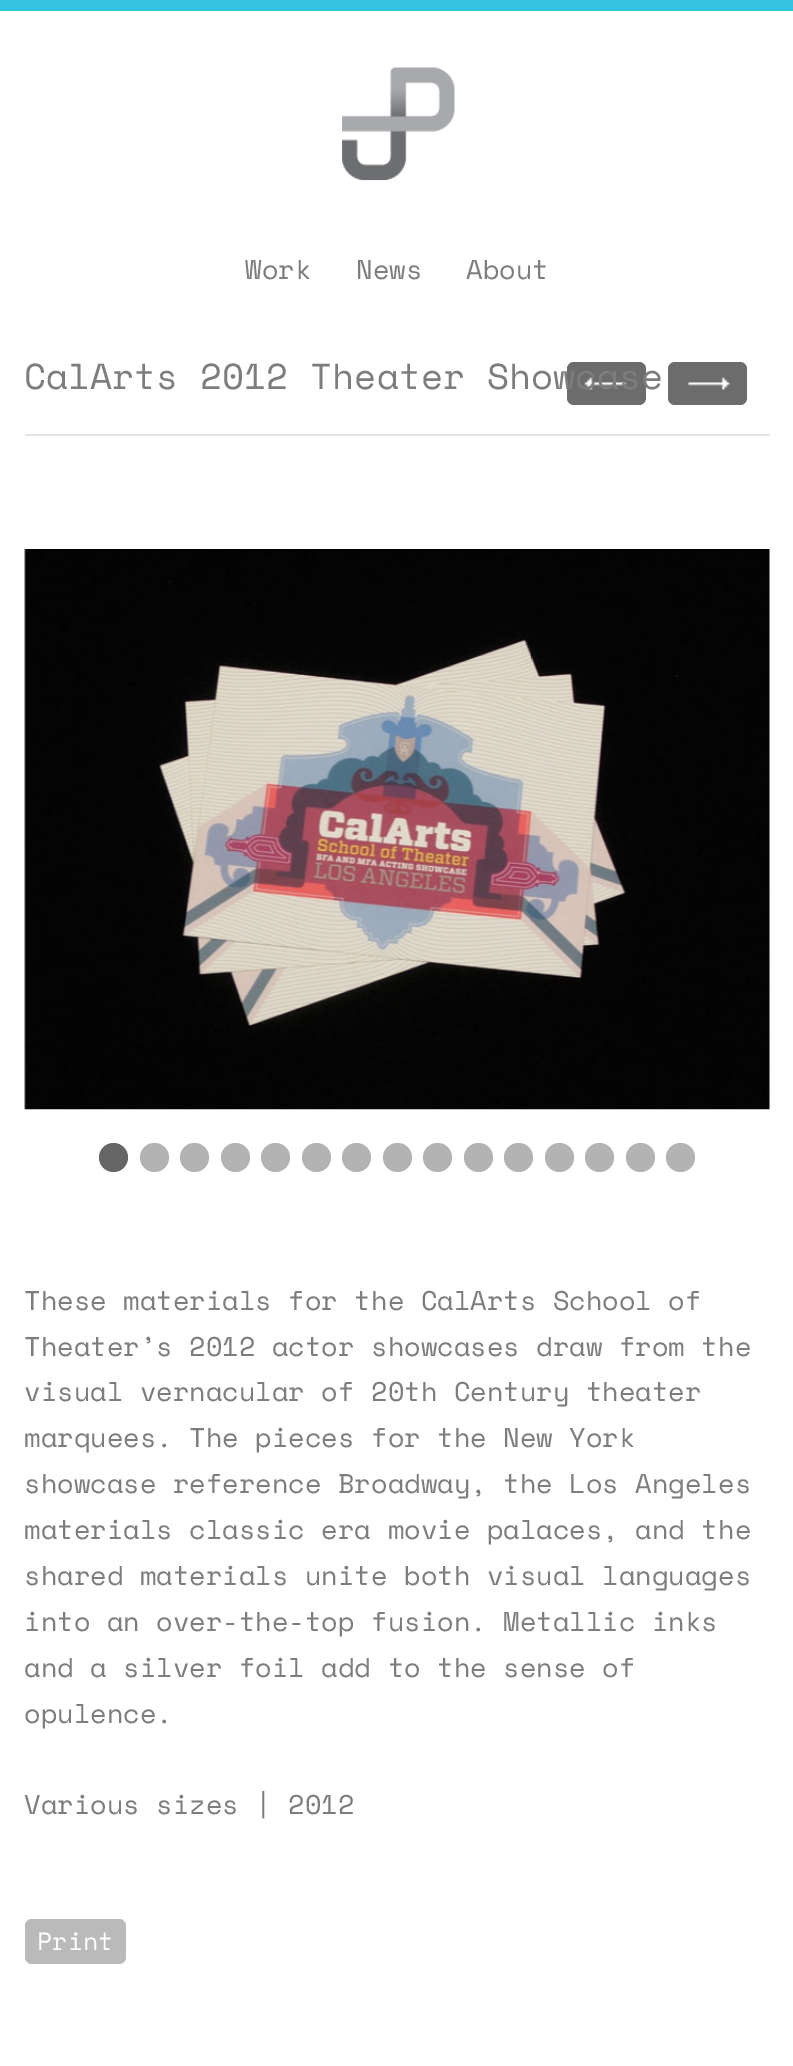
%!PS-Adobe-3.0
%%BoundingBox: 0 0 793 2066
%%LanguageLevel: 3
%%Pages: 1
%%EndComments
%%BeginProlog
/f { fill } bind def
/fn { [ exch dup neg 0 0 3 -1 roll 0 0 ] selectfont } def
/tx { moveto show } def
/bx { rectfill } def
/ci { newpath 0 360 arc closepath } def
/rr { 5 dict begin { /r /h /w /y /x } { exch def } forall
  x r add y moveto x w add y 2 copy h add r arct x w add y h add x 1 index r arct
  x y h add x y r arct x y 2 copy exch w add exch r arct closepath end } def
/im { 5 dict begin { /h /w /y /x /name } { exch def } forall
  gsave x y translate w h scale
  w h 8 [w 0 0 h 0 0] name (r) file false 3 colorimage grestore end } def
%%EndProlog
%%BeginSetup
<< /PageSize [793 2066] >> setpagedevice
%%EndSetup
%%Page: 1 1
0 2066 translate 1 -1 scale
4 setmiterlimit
1 setgray
0 0 793 2066 bx
0.204 0.765 0.878 setrgbcolor
0 0 793 11 bx
(image0.raw) 342 67 114 114 im
/SpaceMono-Regular 27 fn
0.49 0.49 0.482 setrgbcolor
(Work) 245 279 tx
(News) 356 279 tx
(About) 466 279 tx
0.894 setgray
25 434 745 2 bx
0.424 setgray
567 362 79 43 7 rr f
(image1.raw) 584 377 43 13 im
668 362 79 43 7 rr f
(image2.raw) 688 377 42 13 im
/SpaceMono-Regular 36 fn
0.49 0.49 0.482 setrgbcolor
(CalArts 2012 Theater Showcase) 24 389 tx
(image3.raw) 24 549 746 561 im
0.4 setgray
113.5 1157.5 14.5 ci f
0.702 setgray
154.5 1157.5 14.5 ci f
194.5 1157.5 14.5 ci f
235.5 1157.5 14.5 ci f
275.5 1157.5 14.5 ci f
316.5 1157.5 14.5 ci f
356.5 1157.5 14.5 ci f
397.5 1157.5 14.5 ci f
437.5 1157.5 14.5 ci f
478.5 1157.5 14.5 ci f
518.5 1157.5 14.5 ci f
559.5 1157.5 14.5 ci f
599.5 1157.5 14.5 ci f
640.5 1157.5 14.5 ci f
680.5 1157.5 14.5 ci f
/SpaceMono-Regular 27 fn
0.49 0.49 0.482 setrgbcolor
(These materials for the CalArts School of) 24 1310 tx
(Theater’s 2012 actor showcases draw from the) 24 1356 tx
(visual vernacular of 20th Century theater) 24 1401 tx
(marquees. The pieces for the New York) 24 1447 tx
(showcase reference Broadway, the Los Angeles) 24 1493 tx
(materials classic era movie palaces, and the) 24 1539 tx
(shared materials unite both visual languages) 24 1585 tx
(into an over-the-top fusion. Metallic inks) 24 1631 tx
(and a silver foil add to the sense of) 24 1677 tx
(opulence.) 24 1723 tx
(Various sizes | 2012) 24 1814 tx
0.729 setgray
25 1919 101 45 7 rr f
/SpaceMono-Regular 25 fn
1 setgray
(Print) 37 1950 tx
showpage
%%EOF
